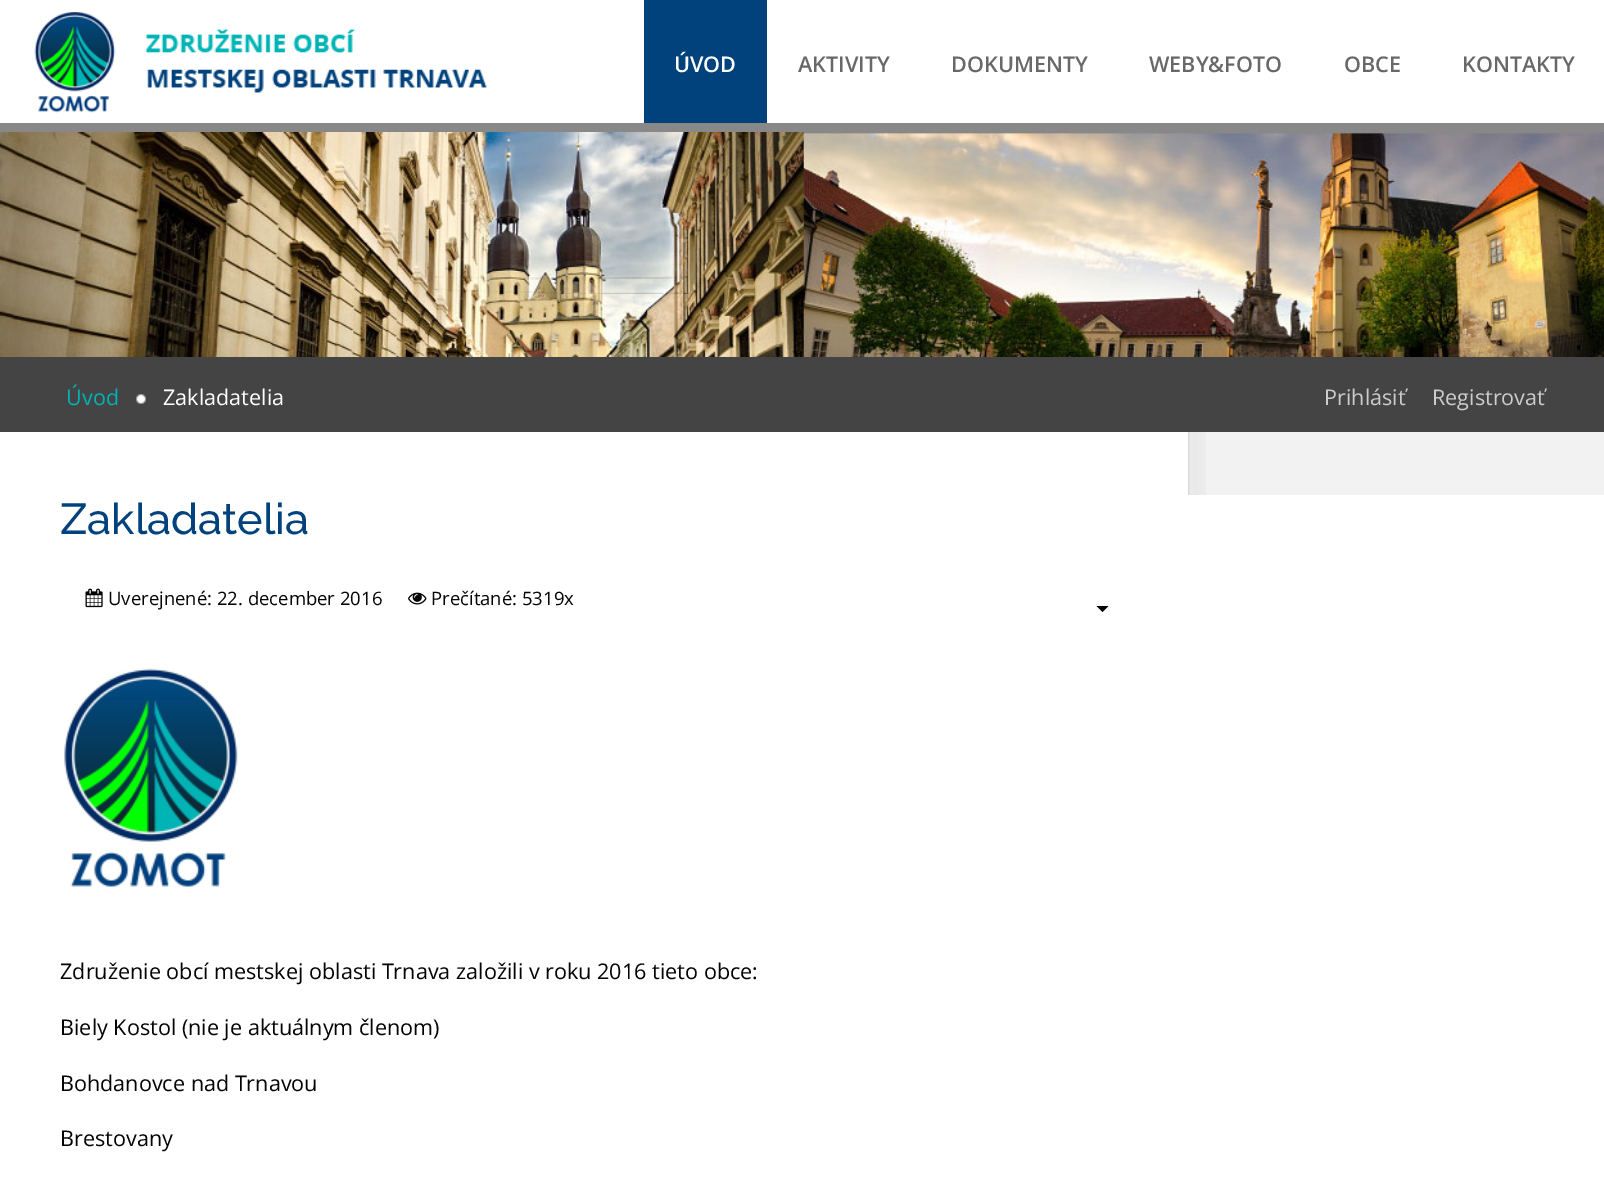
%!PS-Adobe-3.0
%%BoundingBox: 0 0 1604 1180
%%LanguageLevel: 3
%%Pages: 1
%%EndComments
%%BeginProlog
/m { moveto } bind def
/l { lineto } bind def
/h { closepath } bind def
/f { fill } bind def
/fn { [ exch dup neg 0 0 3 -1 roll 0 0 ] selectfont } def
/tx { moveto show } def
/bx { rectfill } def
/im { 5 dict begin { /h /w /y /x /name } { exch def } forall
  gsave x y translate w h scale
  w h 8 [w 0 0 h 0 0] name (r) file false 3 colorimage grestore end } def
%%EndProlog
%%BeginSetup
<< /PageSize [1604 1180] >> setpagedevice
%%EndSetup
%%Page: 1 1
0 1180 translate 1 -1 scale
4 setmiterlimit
1 setgray
0 0 1604 1180 bx
0.533 setgray
0 123 1604 9 bx
(image0.raw) 34 12 453 101 im
0.004 0.259 0.486 setrgbcolor
644 0 123 123 bx
/OpenSans-SemiBold 21.6 fn
1 setgray
(ÚVOD) 674 72 tx
0.408 setgray
(AKTIVITY) 798 72 tx
(DOKUMENTY) 951 72 tx
(WEBY&FOTO) 1149 72 tx
(OBCE) 1344 72 tx
(KONTAKTY) 1462 72 tx
(image1.raw) 0 132 1604 225 im
0.267 setgray
0 357 1604 75 bx
/OpenSans-Regular 21.6 fn
0 0.706 0.71 setrgbcolor
(Úvod) 66 405 tx
(image2.raw) 136 394 10 10 im
1 setgray
(Zakladatelia) 163 405 tx
0.8 setgray
(Prihlásiť) 1324 405 tx
(Registrovať) 1432 405 tx
0.949 setgray
1188 432 416 63 bx
(image3.raw) 1188 432 18 63 im
/Raleway-Medium 43.25 fn
0.004 0.259 0.486 setrgbcolor
(Zakladatelia) 60 534 tx
(image4.raw) 85 588 18 20 im
/OpenSans-Regular 18.5 fn
0.016 setgray
(Uverejnené: 22. december 2016) 108 605 tx
(image5.raw) 408 592 19 13 im
(Prečítané: 5319x) 431 605 tx
0 setgray
1096.5 606 m 1108.5 606 l 1102.5 612 l h f
(image6.raw) 64 668 174 219 im
/OpenSans-Regular 21.6 fn
0.016 setgray
(Združenie obcí mestskej oblasti Trnava založili v roku 2016 tieto obce:) 60 979 tx
(Biely Kostol \(nie je aktuálnym členom\)) 60 1035 tx
(Bohdanovce nad Trnavou) 60 1091 tx
(Brestovany) 60 1146 tx
showpage
%%EOF
